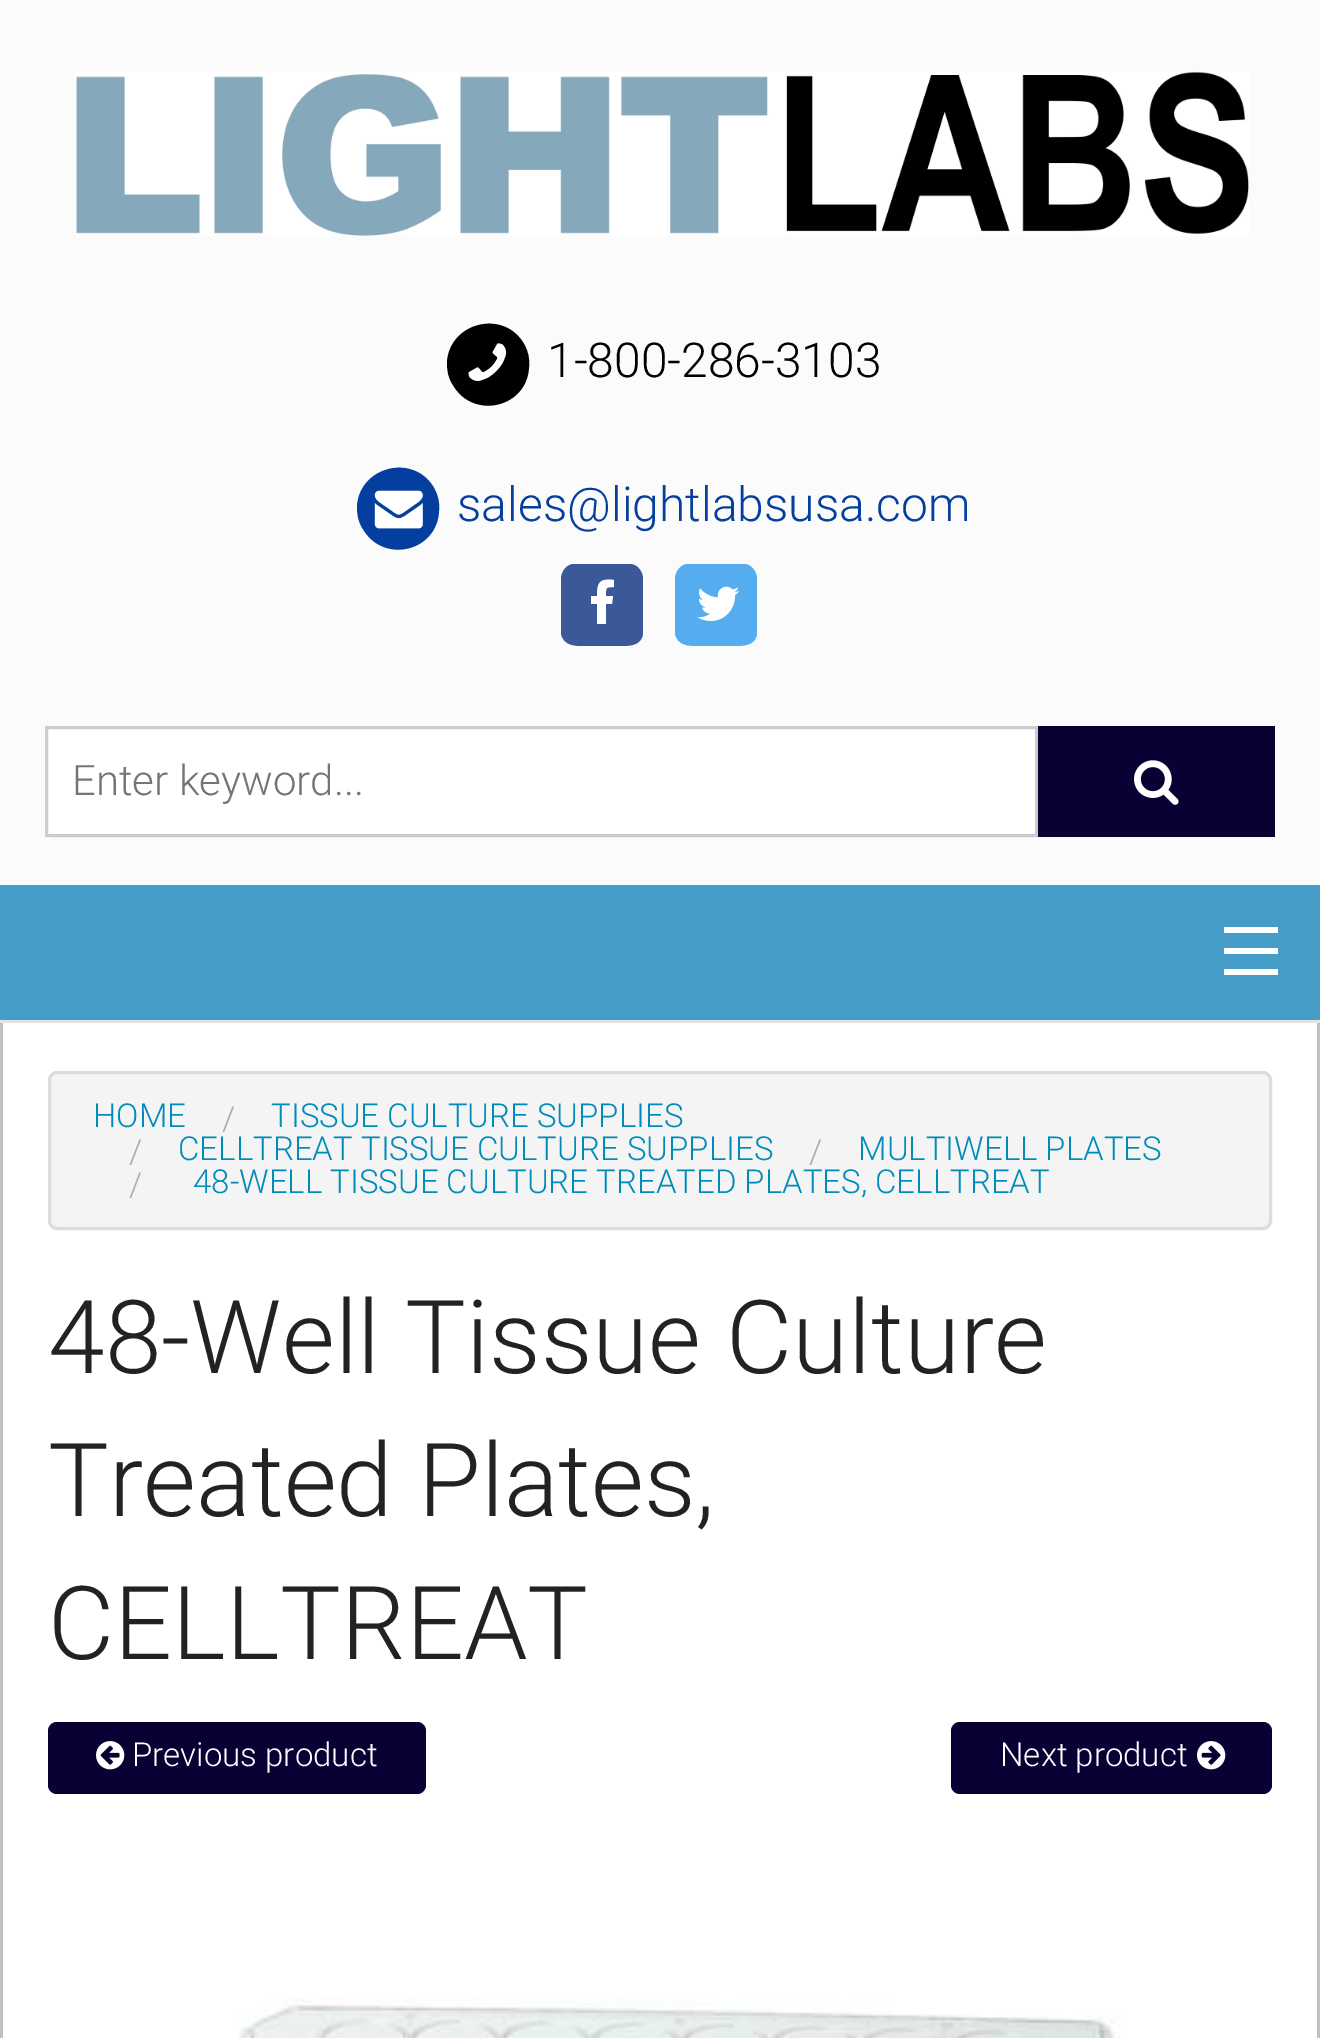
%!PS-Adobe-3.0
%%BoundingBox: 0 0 1320 2038
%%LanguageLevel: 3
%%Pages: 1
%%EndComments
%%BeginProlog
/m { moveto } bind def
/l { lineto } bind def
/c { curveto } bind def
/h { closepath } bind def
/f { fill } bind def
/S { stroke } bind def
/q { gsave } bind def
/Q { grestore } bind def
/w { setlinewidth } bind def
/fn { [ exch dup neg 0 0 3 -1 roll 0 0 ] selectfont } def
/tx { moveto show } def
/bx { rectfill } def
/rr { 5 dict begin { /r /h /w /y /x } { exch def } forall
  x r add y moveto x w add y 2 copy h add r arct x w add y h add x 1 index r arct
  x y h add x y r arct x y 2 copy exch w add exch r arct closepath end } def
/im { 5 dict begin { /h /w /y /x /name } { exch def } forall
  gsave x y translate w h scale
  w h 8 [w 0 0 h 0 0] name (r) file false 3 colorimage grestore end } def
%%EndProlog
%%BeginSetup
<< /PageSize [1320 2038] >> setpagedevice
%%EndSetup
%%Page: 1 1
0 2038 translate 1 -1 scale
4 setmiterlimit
1 setgray
0 0 1320 2038 bx
0.984 setgray
0 0 1320 885 bx
0.886 setgray
0 1020 1320 3 bx
(image0.raw) 76 71 1173 165 im
0 setgray
524 344 m 528 351 530 359 529 367 c 527 408 473 420 453 385 c 448 378 447 370 447 362 c 450 322 504 309 524 344 c h f
(image1.raw) 468 343 39 38 im
/Roboto-Light 48 fn
(1-800-286-3103) 547 377 tx
0.016 0.247 0.627 setrgbcolor
434 488 m 438 495 440 503 439 511 c 437 552 383 564 363 529 c 358 522 357 514 357 506 c 360 466 414 453 434 488 c h f
(image2.raw) 374 490 49 39 im
(sales@lightlabsusa.com) 457 521 tx
0.231 0.349 0.596 setrgbcolor
643 579 m 643 634 l 641 646 629 646 619 646 c 585 646 l 575 646 564 646 561 634 c 561 579 l 561 572 566 565 573 564 c 631 564 l 638 565 643 572 643 579 c h f
1 setgray
614 580 m 614 587 l 605 587 606 588 606 596 c 613 596 l 612 604 l 606 604 l 606 624 l 597 624 l 597 604 l 591 604 l 591 596 l 597 596 l 597 583 599 578 614 580 c h f
0.333 0.675 0.933 setrgbcolor
757 579 m 757 634 l 755 646 743 646 733 646 c 699 646 l 689 646 678 646 675 634 c 675 579 l 675 572 680 565 687 564 c 745 564 l 752 565 757 572 757 579 c h f
(image3.raw) 697 586 43 35 im
1 setgray
46.5 727.5 m 1036.5 727.5 l 1036.5 835.5 l 46.5 835.5 l h q f Q
0.8 setgray
3 w
S
/Roboto-Light 42 fn
0.459 setgray
(Enter keyword...) 72 795 tx
0.031 0.004 0.204 setrgbcolor
1038 726 237 111 bx
(image4.raw) 1134 760 45 45 im
0.271 0.616 0.78 setrgbcolor
0 885 1320 135 bx
1 setgray
1224 969 54 6 bx
1224 948 54 6 bx
1224 927 54 6 bx
0.749 setgray
1317 1023 3 1015 bx
0 1023 3 1015 bx
0.957 setgray
49.5 1072.5 1221 156 7.5 rr q f Q
0.863 setgray
S
/Roboto-Light 33 fn
0 0.549 0.729 setrgbcolor
(HOME) 93 1127 tx
0.667 setgray
(/) 222 1130 tx
0 0.549 0.729 setrgbcolor
(TISSUE CULTURE SUPPLIES) 271 1127 tx
0.667 setgray
(/) 129 1163 tx
0 0.549 0.729 setrgbcolor
(CELLTREAT TISSUE CULTURE SUPPLIES) 178 1160 tx
0.667 setgray
(/) 809 1163 tx
0 0.549 0.729 setrgbcolor
(MULTIWELL PLATES) 858 1160 tx
0.667 setgray
(/) 129 1196 tx
0 0.549 0.729 setrgbcolor
(48-WELL TISSUE CULTURE TREATED PLATES, CELLTREAT) 193 1193 tx
/Roboto-Light 102 fn
0.133 setgray
(48-Well Tissue Culture) 48 1373 tx
(Treated Plates,) 48 1516 tx
(CELLTREAT) 48 1659 tx
0.031 0.004 0.204 setrgbcolor
48 1722 378 72 9 rr f
(image5.raw) 96 1741 29 29 im
/Roboto-Light 33 fn
1 setgray
(Previous product) 132 1766 tx
0.031 0.004 0.204 setrgbcolor
951 1722 321 72 9 rr f
1 setgray
(Next product) 1000 1766 tx
(image6.raw) 1197 1741 29 29 im
(image7.raw) 238 1998 883 40 im
showpage
%%EOF
